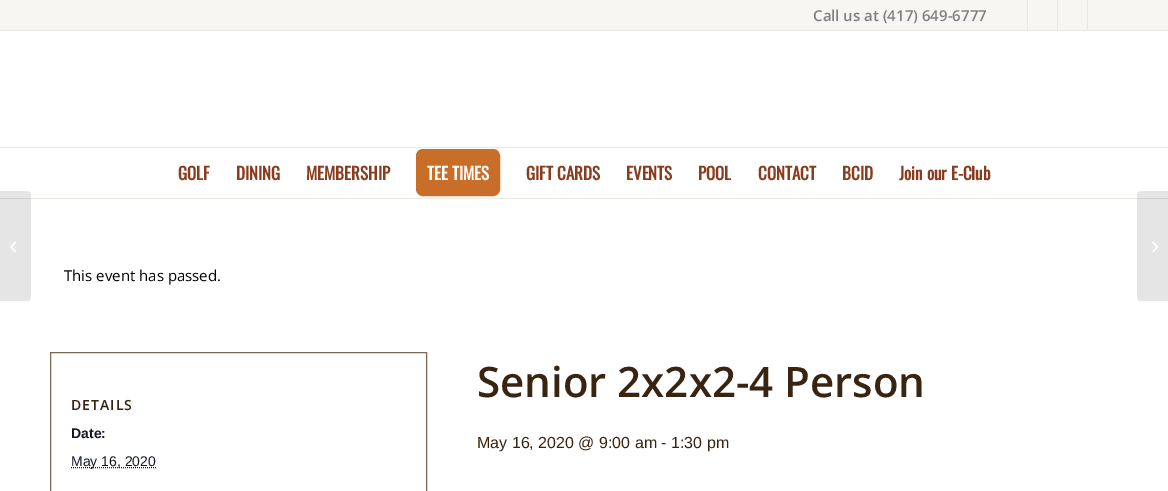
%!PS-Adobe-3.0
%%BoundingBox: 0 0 1168 491
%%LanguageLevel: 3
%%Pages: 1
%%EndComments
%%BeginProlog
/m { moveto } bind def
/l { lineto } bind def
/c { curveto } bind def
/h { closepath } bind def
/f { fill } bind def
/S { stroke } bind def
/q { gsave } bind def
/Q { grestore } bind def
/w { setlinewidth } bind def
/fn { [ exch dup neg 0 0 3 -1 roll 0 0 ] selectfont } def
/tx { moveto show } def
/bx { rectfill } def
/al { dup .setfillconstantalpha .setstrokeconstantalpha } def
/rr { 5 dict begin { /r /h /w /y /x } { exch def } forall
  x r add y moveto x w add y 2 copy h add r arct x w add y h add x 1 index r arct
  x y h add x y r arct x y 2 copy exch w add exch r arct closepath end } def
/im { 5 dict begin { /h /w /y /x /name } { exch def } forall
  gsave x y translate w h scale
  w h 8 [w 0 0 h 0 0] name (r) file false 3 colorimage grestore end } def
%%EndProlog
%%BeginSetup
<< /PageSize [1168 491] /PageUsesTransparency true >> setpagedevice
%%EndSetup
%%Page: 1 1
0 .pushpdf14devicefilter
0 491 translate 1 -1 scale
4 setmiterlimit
1 setgray
0 0 1168 491 bx
0.973 0.965 0.949 setrgbcolor
0 0 1168 30 bx
0.922 0.91 0.886 setrgbcolor
0 30 1168 1 bx
/OpenSans-SemiBold 15 fn
0.502 setgray
(Call us at \(417\) 649-6777) 813 21 tx
0.922 0.91 0.886 setrgbcolor
1027 0 1 30 bx
1057 0 1 30 bx
1087 0 1 30 bx
0 198 1168 1 bx
0 147 1168 1 bx
/Oswald-Bold 17 fn
0.533 0.239 0.122 setrgbcolor
(GOLF) 178 180 tx
(DINING) 236 180 tx
(MEMBERSHIP) 306 180 tx
0.788 0.431 0.157 setrgbcolor
417 150 82 45 6 rr q f Q
2 w
S
1 setgray
(TEE TIMES) 427 180 tx
0.533 0.239 0.122 setrgbcolor
(GIFT CARDS) 526 180 tx
(EVENTS) 626 180 tx
(POOL) 698 180 tx
(CONTACT) 758 180 tx
(BCID) 842 180 tx
(Join our E-Club) 899 180 tx
0.1 al
0 setgray
0 191 m 27 191 l 29 191 31 193 31 195 c 31 297 l 31 299 29 301 27 301 c 0 301 l h f
1 al
(image0.raw) 10 241 6 12 im
0.1 al
1141 191 m 1168 191 l 1168 301 l 1141 301 l 1139 301 1137 299 1137 297 c 1137 195 l 1137 193 1139 191 1141 191 c h f
1 al
(image1.raw) 1152 241 6 12 im
/OpenSans-Regular 15 fn
(This event has passed.) 64 281 tx
0.486 0.408 0.325 setrgbcolor
1 w
50.5 352.5 376 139 rectstroke
/OpenSans-SemiBold 14 fn
0.22 0.141 0.063 setrgbcolor
71 410 m 1 0 (DETAILS) ashow
/LiberationSans-Bold 14 fn
0.078 0.094 0.153 setrgbcolor
(Date:) 71 438 tx
[1 1] 0 setdash
71 467.5 m 156 467.5 l S
/LiberationSans-Regular 14 fn
(May 16, 2020) 71 466 tx
/OpenSans-SemiBold 42 fn
0.22 0.141 0.063 setrgbcolor
(Senior 2x2x2-4 Person) 477 397 tx
/LiberationSans-Regular 16 fn
(May 16, 2020 @ 9:00 am - 1:30 pm) 477 448 tx
.poppdf14devicefilter showpage
%%EOF
